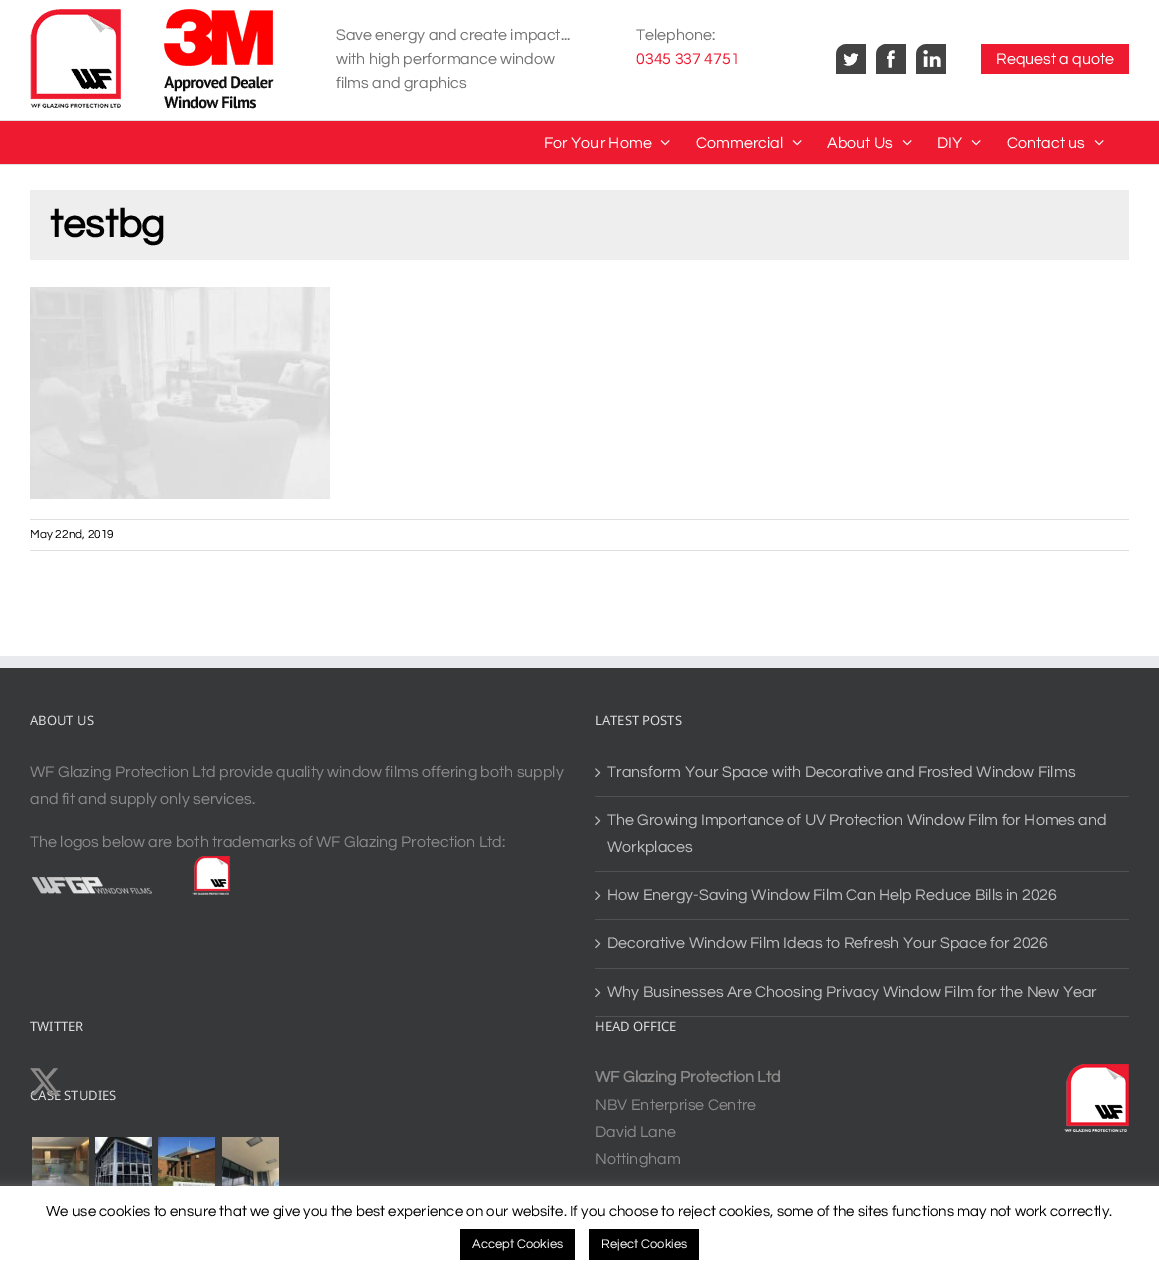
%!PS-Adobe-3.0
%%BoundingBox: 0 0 1159 1277
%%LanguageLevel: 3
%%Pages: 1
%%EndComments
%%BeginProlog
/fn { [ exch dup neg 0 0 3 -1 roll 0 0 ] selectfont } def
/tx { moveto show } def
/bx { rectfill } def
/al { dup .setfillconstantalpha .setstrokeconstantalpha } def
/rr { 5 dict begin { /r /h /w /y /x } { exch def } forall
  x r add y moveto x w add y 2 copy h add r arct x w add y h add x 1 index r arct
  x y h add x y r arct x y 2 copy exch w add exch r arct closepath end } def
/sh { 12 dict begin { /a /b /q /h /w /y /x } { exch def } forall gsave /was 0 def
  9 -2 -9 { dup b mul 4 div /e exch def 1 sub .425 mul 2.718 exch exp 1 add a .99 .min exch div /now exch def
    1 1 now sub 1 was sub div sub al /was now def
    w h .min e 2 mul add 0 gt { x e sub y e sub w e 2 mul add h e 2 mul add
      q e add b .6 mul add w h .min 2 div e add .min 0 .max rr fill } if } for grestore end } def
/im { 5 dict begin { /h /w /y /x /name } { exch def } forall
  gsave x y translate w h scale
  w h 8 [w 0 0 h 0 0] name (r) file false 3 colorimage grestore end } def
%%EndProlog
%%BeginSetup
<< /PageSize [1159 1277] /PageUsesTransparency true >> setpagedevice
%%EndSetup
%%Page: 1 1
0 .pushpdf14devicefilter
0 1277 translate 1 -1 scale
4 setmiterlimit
1 setgray
0 0 1159 1277 bx
0.882 setgray
0 120 1159 1 bx
(image0.raw) 30 9 244 100 im
/Questrial-Regular 16 fn
0.455 setgray
(Save energy and create impact...) 336 40 tx
(with high performance window) 336 64 tx
(films and graphics) 336 88 tx
(Telephone:) 636 40 tx
0.933 0.098 0.184 setrgbcolor
(0345 337 4751) 636 64 tx
(image1.raw) 836 44 30 30 im
(image2.raw) 876 44 30 30 im
(image3.raw) 916 44 30 30 im
0.933 0.102 0.188 setrgbcolor
981 44 148 30 bx
1 setgray
(Request a quote) 996 64 tx
0.933 0.102 0.188 setrgbcolor
0 121 1159 43 bx
0.882 setgray
0 164 1159 1 bx
1 setgray
(For Your Home) 544 148 tx
(image4.raw) 660 140 10 6 im
(Commercial) 696 148 tx
(image4.raw) 792 140 10 6 im
(About Us) 827 148 tx
(image4.raw) 902 140 10 6 im
(DIY) 937 148 tx
(image4.raw) 971 140 10 6 im
(Contact us) 1007 148 tx
(image4.raw) 1094 140 10 6 im
0.933 setgray
30 190 1099 70 bx
/Questrial-Bold 40 fn
0 setgray
(testbg) 50 237 tx
(image5.raw) 30 287 300 212 im
0.878 0.871 0.871 setrgbcolor
30 519 1099 1 bx
30 550 1099 1 bx
/Questrial-Regular 12 fn
0 setgray
(May 22nd, 2019) 30 538 tx
0.212 0.22 0.224 setrgbcolor
0 668 1159 518 bx
0.914 0.918 0.933 setrgbcolor
0 656 1159 12 bx
/NotoSans-Regular 13 fn
0.867 setgray
(ABOUT US) 30 725 tx
/Questrial-Regular 16 fn
0.549 0.537 0.537 setrgbcolor
(WF Glazing Protection Ltd provide quality window films offering both supply) 30 777 tx
(and fit and supply only services.) 30 804 tx
(The logos below are both trademarks of WF Glazing Protection Ltd:) 30 847 tx
(image6.raw) 32 856 198 39 im
/NotoSans-Regular 13 fn
0.867 setgray
(LATEST POSTS) 595 725 tx
0.314 0.318 0.322 setrgbcolor
595 796 534 1 bx
(image7.raw) 595 768 6 10 im
/Questrial-Regular 16 fn
0.749 setgray
(Transform Your Space with Decorative and Frosted Window Films) 607 777 tx
0.314 0.318 0.322 setrgbcolor
595 871 534 1 bx
(image7.raw) 595 816 6 10 im
0.749 setgray
(The Growing Importance of UV Protection Window Film for Homes and) 607 825 tx
(Workplaces) 607 852 tx
0.314 0.318 0.322 setrgbcolor
595 919 534 1 bx
(image7.raw) 595 891 6 10 im
0.749 setgray
(How Energy-Saving Window Film Can Help Reduce Bills in 2026) 607 900 tx
0.314 0.318 0.322 setrgbcolor
595 968 534 1 bx
(image7.raw) 595 939 6 10 im
0.749 setgray
(Decorative Window Film Ideas to Refresh Your Space for 2026) 607 948 tx
0.314 0.318 0.322 setrgbcolor
595 1016 534 1 bx
(image7.raw) 595 988 6 10 im
0.749 setgray
(Why Businesses Are Choosing Privacy Window Film for the New Year) 607 997 tx
/NotoSans-Regular 13 fn
0.867 setgray
(TWITTER) 30 1031 tx
(CASE STUDIES) 30 1100 tx
(image8.raw) 30 1068 30 28 im
(image9.raw) 32 1137 57 49 im
(image10.raw) 95 1137 57 49 im
(image11.raw) 158 1137 57 49 im
(image12.raw) 222 1137 57 49 im
(HEAD OFFICE) 595 1031 tx
/Questrial-Bold 16 fn
0.549 0.537 0.537 setrgbcolor
(WF Glazing Protection Ltd) 595 1082 tx
(image13.raw) 1064 1064 65 68 im
/Questrial-Regular 16 fn
(NBV Enterprise Centre) 595 1110 tx
(David Lane) 595 1137 tx
(Nottingham) 595 1164 tx
0.675 0.671 0.671 setrgbcolor
0 1185 1159 91 0 5 0.3 sh
1 setgray
0 1186 1159 91 bx
/Questrial-Regular 15 fn
0 setgray
(We use cookies to ensure that we give you the best experience on our website. If you choose to reject cookies, some of the sites functions may not work correctly.) 46 1216 tx
460 1229 115 31 bx
/Questrial-Regular 13 fn
1 setgray
(Accept Cookies) 472 1248 tx
0 setgray
589 1229 110 31 bx
1 setgray
(Reject Cookies) 601 1248 tx
.poppdf14devicefilter showpage
%%EOF
